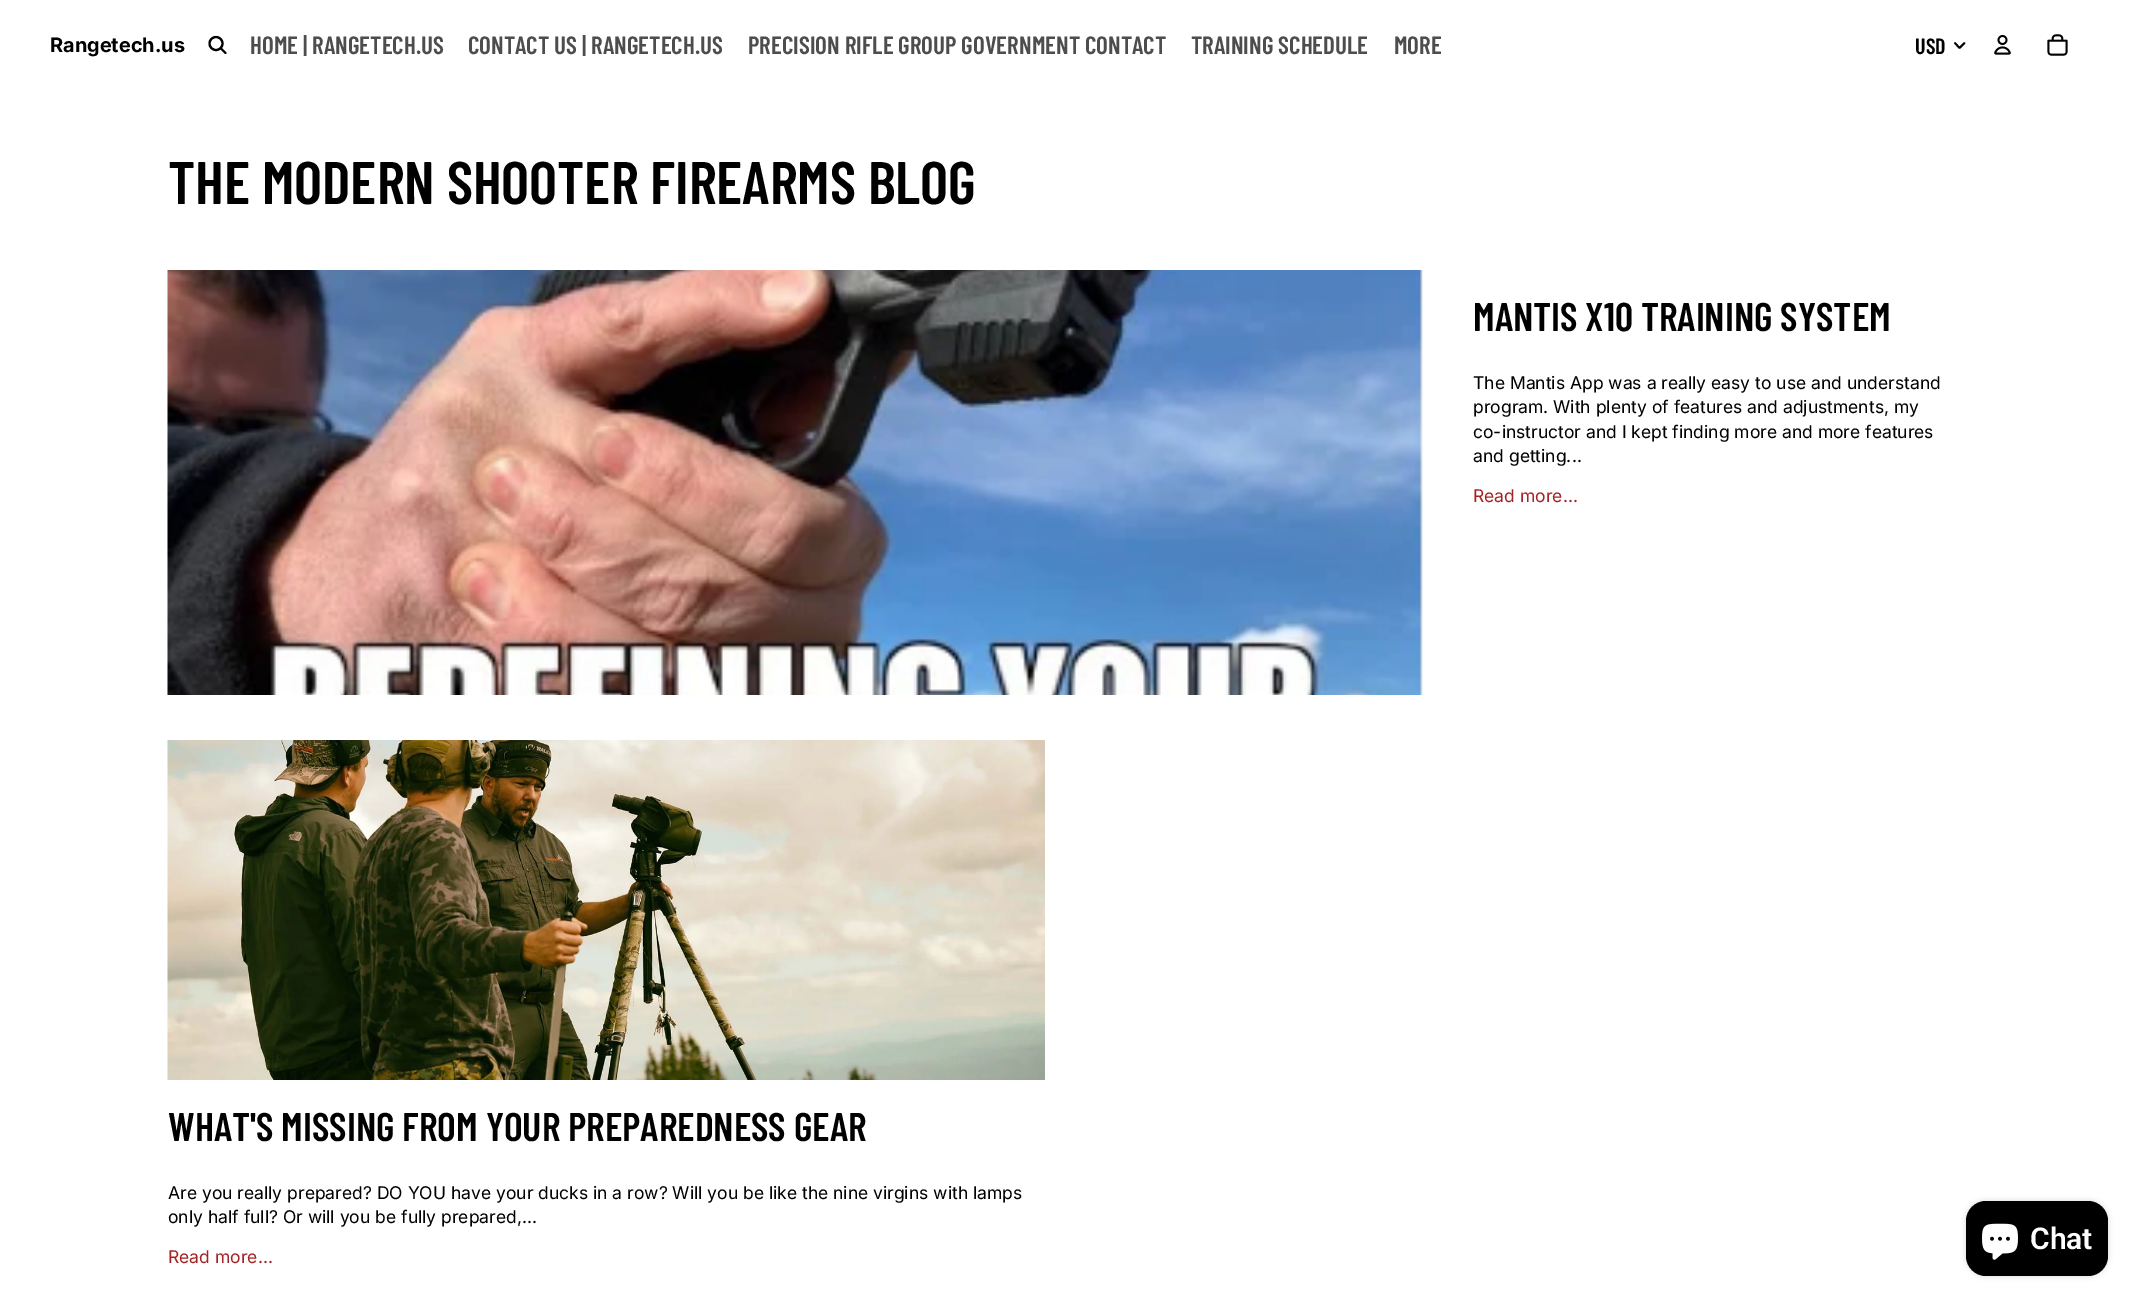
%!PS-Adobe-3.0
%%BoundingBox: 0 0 2135 1302
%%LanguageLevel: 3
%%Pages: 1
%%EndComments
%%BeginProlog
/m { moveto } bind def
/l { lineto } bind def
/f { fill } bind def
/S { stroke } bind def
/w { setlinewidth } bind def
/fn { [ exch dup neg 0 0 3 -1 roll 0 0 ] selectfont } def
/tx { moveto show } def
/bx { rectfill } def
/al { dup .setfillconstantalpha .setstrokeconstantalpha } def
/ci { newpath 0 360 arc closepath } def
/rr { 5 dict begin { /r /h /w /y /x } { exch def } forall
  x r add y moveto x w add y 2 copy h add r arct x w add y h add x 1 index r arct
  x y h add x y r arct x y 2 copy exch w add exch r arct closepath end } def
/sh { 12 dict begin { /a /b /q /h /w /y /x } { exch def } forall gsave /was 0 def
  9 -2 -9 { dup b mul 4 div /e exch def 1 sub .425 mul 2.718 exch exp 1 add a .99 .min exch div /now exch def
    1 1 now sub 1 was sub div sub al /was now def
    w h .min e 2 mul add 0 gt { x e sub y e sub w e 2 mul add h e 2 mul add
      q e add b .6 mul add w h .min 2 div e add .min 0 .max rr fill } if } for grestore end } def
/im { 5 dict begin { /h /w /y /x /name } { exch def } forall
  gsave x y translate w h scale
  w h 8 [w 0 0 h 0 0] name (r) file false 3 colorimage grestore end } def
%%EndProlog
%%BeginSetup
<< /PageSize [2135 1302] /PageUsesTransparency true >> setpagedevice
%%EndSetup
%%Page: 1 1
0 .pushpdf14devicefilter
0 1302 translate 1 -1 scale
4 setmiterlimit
1 setgray
0 0 2135 1302 bx
/Inter-Bold 20 fn
0 setgray
(Rangetech.us) 50 52 tx
2.1 w
216 43.5 6.5 ci S
1 setlinecap
1 setlinejoin
221 48.5 m 225.5 53 l S
/BarlowCondensed-SemiBold 25 fn
0.302 setgray
(HOME | RANGETECH.US) 250 54 tx
(CONTACT US | RANGETECH.US) 468 54 tx
(PRECISION RIFLE GROUP GOVERNMENT CONTACT) 748 54 tx
(TRAINING SCHEDULE) 1191 54 tx
(MORE) 1394 54 tx
/BarlowCondensed-SemiBold 22 fn
0 setgray
(USD) 1915 54 tx
1.8 w
1964.5 43 m 1959.5 48 l 1955 43 l S
(image0.raw) 1994 34 17 21 im
(image1.raw) 2047 34 21 22 im
/BarlowCondensed-SemiBold 60 fn
(THE MODERN SHOOTER FIREARMS BLOG) 168 204 tx
(image2.raw) 167 270 1256 425 im
/BarlowCondensed-SemiBold 40 fn
(MANTIS X10 TRAINING SYSTEM) 1473 331 tx
/Inter-Regular 17.5 fn
(The Mantis App was a really easy to use and understand) 1473 389 tx
(program. With plenty of features and adjustments, my) 1473 413 tx
(co-instructor and I kept finding more and more features) 1473 438 tx
(and getting...) 1473 462 tx
0.643 0.137 0.145 setrgbcolor
(Read more...) 1473 502 tx
(image3.raw) 167 740 878 340 im
/BarlowCondensed-SemiBold 40 fn
0 setgray
(WHAT'S MISSING FROM YOUR PREPAREDNESS GEAR) 168 1141 tx
/Inter-Regular 17.5 fn
(Are you really prepared? DO YOU have your ducks in a row? Will you be like the nine virgins with lamps) 168 1199 tx
(only half full? Or will you be fully prepared,...) 168 1223 tx
0.643 0.137 0.145 setrgbcolor
(Read more...) 168 1263 tx
0 setgray
1966 1201 142 75 20 3 0.15 sh
1966 1201 142 75 20 rr f
(image4.raw) 1982 1223 36 37 im
/Roboto-SemiBold 30 fn
1 setgray
(Chat) 2030 1249 tx
.poppdf14devicefilter showpage
%%EOF
